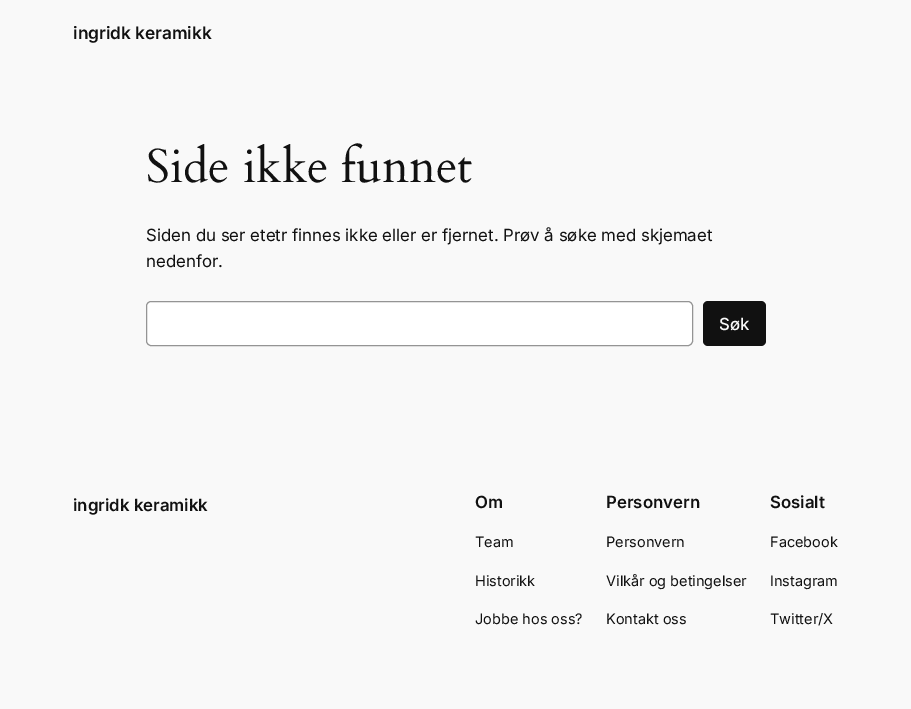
%!PS-Adobe-3.0
%%BoundingBox: 0 0 911 709
%%LanguageLevel: 3
%%Pages: 1
%%EndComments
%%BeginProlog
/f { fill } bind def
/S { stroke } bind def
/q { gsave } bind def
/Q { grestore } bind def
/fn { [ exch dup neg 0 0 3 -1 roll 0 0 ] selectfont } def
/tx { moveto show } def
/bx { rectfill } def
/rr { 5 dict begin { /r /h /w /y /x } { exch def } forall
  x r add y moveto x w add y 2 copy h add r arct x w add y h add x 1 index r arct
  x y h add x y r arct x y 2 copy exch w add exch r arct closepath end } def
%%EndProlog
%%BeginSetup
<< /PageSize [911 709] >> setpagedevice
%%EndSetup
%%Page: 1 1
0 709 translate 1 -1 scale
4 setmiterlimit
0.976 setgray
0 0 911 709 bx
/Inter-SemiBold 17.25 fn
0.067 setgray
(ingridk keramikk) 73 39 tx
/Cardo-Regular 47.5 fn
(Side ikke funnet) 146 182 tx
/Inter-Regular 16.8 fn
(Siden du ser etetr finnes ikke eller er fjernet. Prøv å søke med skjemaet) 146 241 tx
(nedenfor.) 146 267 tx
1 setgray
146.5 301.5 546 44 4.5 rr q f Q
0.58 setgray
S
0.067 setgray
703 301 63 45 5 rr f
/Inter-Medium 16.8 fn
0.976 setgray
(Søk) 719 330 tx
/Inter-SemiBold 16.8 fn
0.067 setgray
(ingridk keramikk) 73 511 tx
(Om) 475 508 tx
/Inter-Regular 14.5 fn
(Team) 475 547 tx
(Historikk) 475 586 tx
(Jobbe hos oss?) 475 624 tx
/Inter-SemiBold 16.8 fn
(Personvern) 606 508 tx
/Inter-Regular 14.5 fn
(Personvern) 606 547 tx
(Vilkår og betingelser) 606 586 tx
(Kontakt oss) 606 624 tx
/Inter-SemiBold 16.8 fn
(Sosialt) 770 508 tx
/Inter-Regular 14.5 fn
(Facebook) 770 547 tx
(Instagram) 770 586 tx
(Twitter/X) 770 624 tx
showpage
%%EOF
